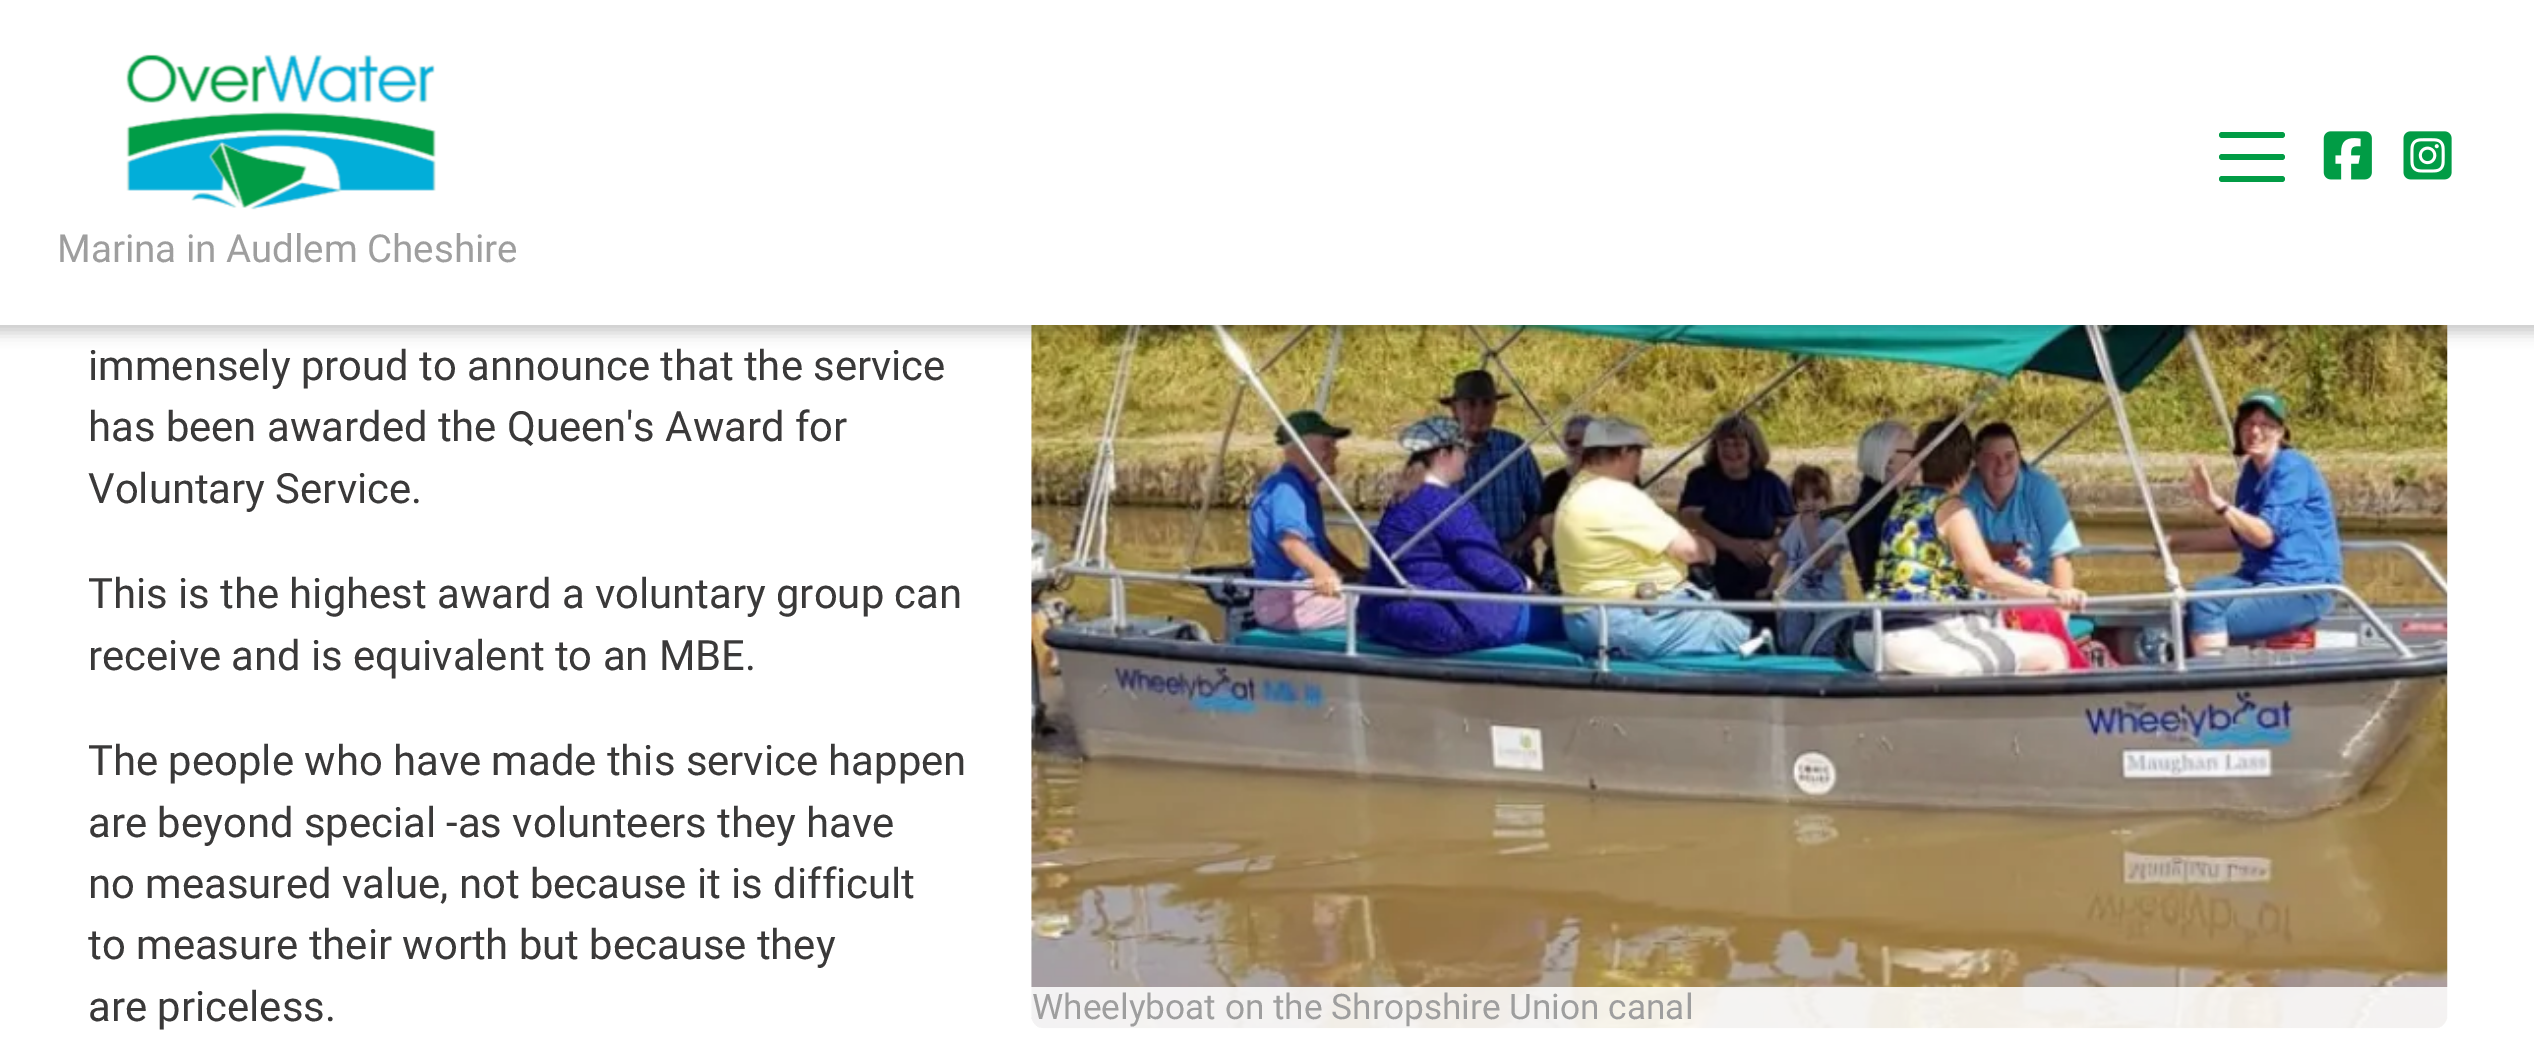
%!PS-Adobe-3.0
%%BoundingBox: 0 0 2534 1038
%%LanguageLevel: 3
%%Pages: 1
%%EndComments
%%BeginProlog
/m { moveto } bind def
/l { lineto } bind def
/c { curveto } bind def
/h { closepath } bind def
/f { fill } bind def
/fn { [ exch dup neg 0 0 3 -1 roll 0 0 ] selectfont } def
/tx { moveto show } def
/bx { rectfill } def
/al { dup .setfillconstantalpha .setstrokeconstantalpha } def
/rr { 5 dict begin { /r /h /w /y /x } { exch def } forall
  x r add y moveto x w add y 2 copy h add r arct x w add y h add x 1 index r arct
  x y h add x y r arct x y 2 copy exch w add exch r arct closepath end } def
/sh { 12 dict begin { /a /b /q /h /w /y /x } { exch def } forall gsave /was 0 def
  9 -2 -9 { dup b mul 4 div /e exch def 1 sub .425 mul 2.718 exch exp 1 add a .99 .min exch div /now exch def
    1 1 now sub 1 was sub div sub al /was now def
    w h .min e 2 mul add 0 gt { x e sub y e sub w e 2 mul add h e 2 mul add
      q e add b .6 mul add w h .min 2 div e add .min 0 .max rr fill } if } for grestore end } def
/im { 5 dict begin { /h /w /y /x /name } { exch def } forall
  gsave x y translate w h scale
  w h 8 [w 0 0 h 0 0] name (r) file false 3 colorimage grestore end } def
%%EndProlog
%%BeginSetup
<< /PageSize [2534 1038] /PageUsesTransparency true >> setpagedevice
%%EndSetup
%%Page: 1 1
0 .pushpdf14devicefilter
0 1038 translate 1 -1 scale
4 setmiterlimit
1 setgray
0 0 2534 1038 bx
(image3.raw) 1031 325 1417 704 im
0 setgray
-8 -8 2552 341 0 7 0.2 sh
1 setgray
0 0 2534 325 bx
0.004 0.612 0.271 setrgbcolor
2219 132 66 6 3 rr f
2219 154 66 6 3 rr f
2219 176 66 6 3 rr f
(image0.raw) 126 54 310 156 im
(image1.raw) 2323 131 49 49 im
(image2.raw) 2403 131 49 49 im
/Roboto-Regular 38.5 fn
0.62 setgray
(Marina in Audlem Cheshire) 57 262 tx
/Roboto-Regular 41.8 fn
0.227 0.224 0.224 setrgbcolor
(immensely proud to announce that the service) 88 380 tx
(has been awarded the Queen's Award for) 88 441 tx
(Voluntary Service.) 88 503 tx
(This is the highest award a voluntary group can) 88 608 tx
(receive and is equivalent to an MBE.) 88 670 tx
(The people who have made this service happen) 88 775 tx
(are beyond special -as volunteers they have) 88 837 tx
(no measured value, not because it is difficult) 88 898 tx
(to measure their worth but because they) 88 959 tx
(are priceless.) 88 1021 tx
0.87 al
1 setgray
1031 987 m 2448 987 l 2448 1015 l 2448 1022.5 2441.5 1029 2434 1029 c 1045 1029 l 1037.5 1029 1031 1022.5 1031 1015 c h f
/Roboto-Regular 35.25 fn
1 al
0.62 setgray
(Wheelyboat on the Shropshire Union canal) 1032 1019 tx
.poppdf14devicefilter showpage
%%EOF
